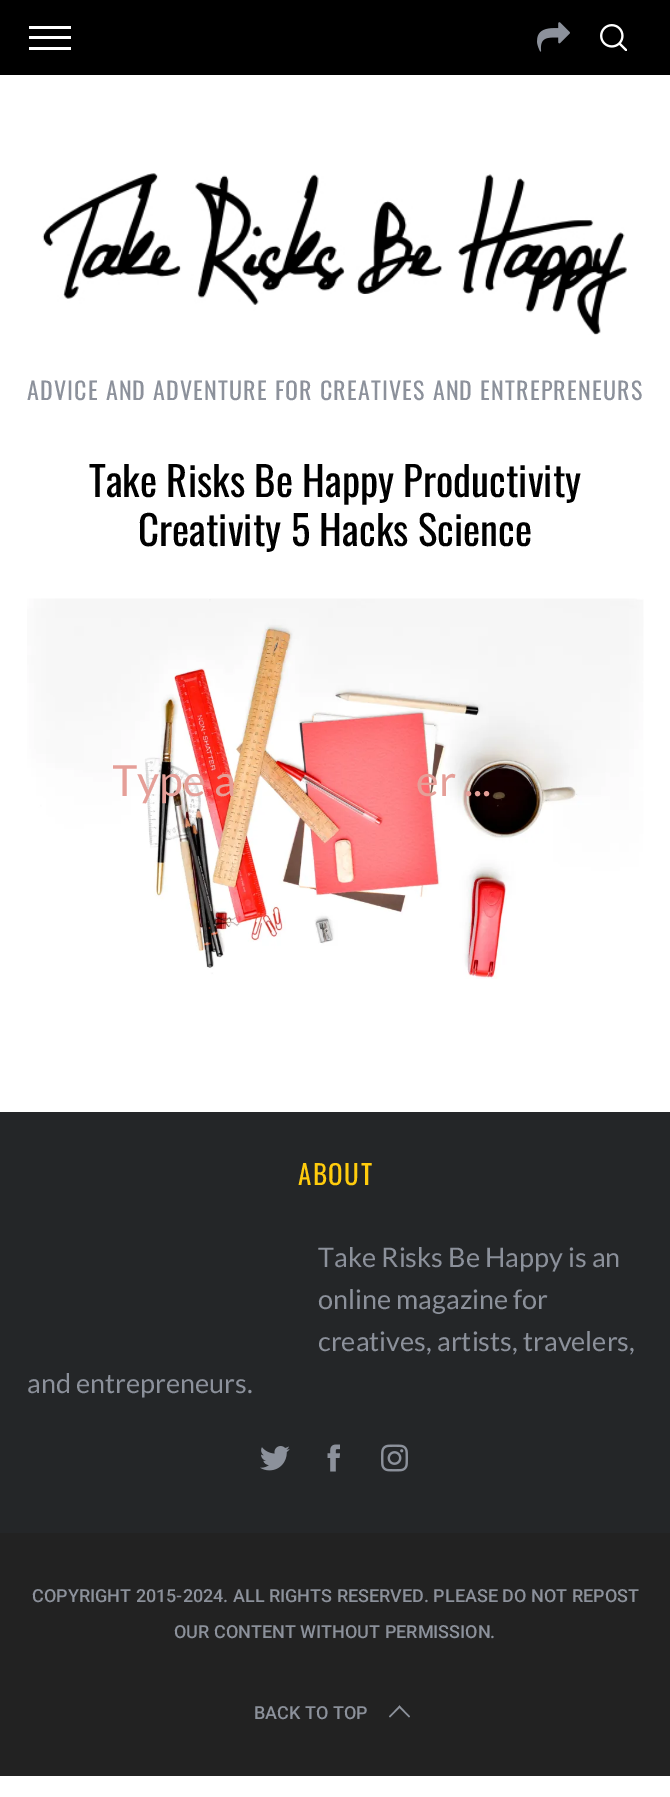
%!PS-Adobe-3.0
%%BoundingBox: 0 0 670 1797
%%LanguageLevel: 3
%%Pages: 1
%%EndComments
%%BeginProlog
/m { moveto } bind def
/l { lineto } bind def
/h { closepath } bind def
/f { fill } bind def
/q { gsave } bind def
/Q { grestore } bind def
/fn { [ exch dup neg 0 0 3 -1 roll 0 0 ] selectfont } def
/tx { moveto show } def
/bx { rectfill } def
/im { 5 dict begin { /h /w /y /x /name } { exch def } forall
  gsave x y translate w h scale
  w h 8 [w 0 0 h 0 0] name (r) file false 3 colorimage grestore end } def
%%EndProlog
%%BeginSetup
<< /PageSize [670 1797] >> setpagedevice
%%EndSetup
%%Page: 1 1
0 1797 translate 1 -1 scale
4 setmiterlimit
1 setgray
0 0 670 1797 bx
0 setgray
0 0 670 75 bx
1 setgray
29 36 42 3 bx
29 26 42 3 bx
29 47 42 3 bx
(image0.raw) 537 22 33 30 im
(image1.raw) 600 24 27 27 im
(image2.raw) 42 173 585 162 im
/Oswald-Regular 24 fn
0.549 0.569 0.608 setrgbcolor
27 400 m 1.2 0 (ADVICE AND ADVENTURE FOR CREATIVES AND ENTREPRENEURS) ashow
/Oswald-Regular 40.75 fn
0 setgray
(Take Risks Be Happy Productivity) 89 497 tx
(Creativity 5 Hacks Science) 138 546 tx
(image3.raw) 27 598 617 381 im
q
113 755 445 49 rectclip
/Lato-Regular 43 fn
0.898 0.624 0.596 setrgbcolor
(Type a) 112 796 tx
Q
/Lato-Regular 43 fn
0.898 0.624 0.596 setrgbcolor
(er ...) 416 796 tx
0.141 0.149 0.157 setrgbcolor
0 1112 670 421 bx
/Oswald-Regular 27 fn
1 0.8 0.051 setrgbcolor
298 1185 m 1.5 0 (ABOUT) ashow
/Lato-Regular 27 fn
0.549 0.569 0.608 setrgbcolor
(Take Risks Be Happy is an) 318 1267 tx
(online magazine for) 318 1309 tx
(creatives, artists, travelers,) 318 1351 tx
(and entrepreneurs.) 27 1393 tx
(image4.raw) 260 1446 30 25 im
(image5.raw) 327 1444 13 28 im
(image6.raw) 381 1444 27 28 im
0.133 setgray
0 1533 670 243 bx
/Roboto-Medium 18 fn
0.549 0.569 0.608 setrgbcolor
(COPYRIGHT 2015-2024. ALL RIGHTS RESERVED. PLEASE DO NOT REPOST) 32 1602 tx
(OUR CONTENT WITHOUT PERMISSION.) 174 1638 tx
(BACK TO TOP) 254 1719 tx
389 1716.5 m 399.5 1705.5 l 400.5 1707 l 390 1717.5 l h f
398.5 1707 m 399.5 1705.5 l 410 1716.5 l 409 1717.5 l h f
showpage
%%EOF
